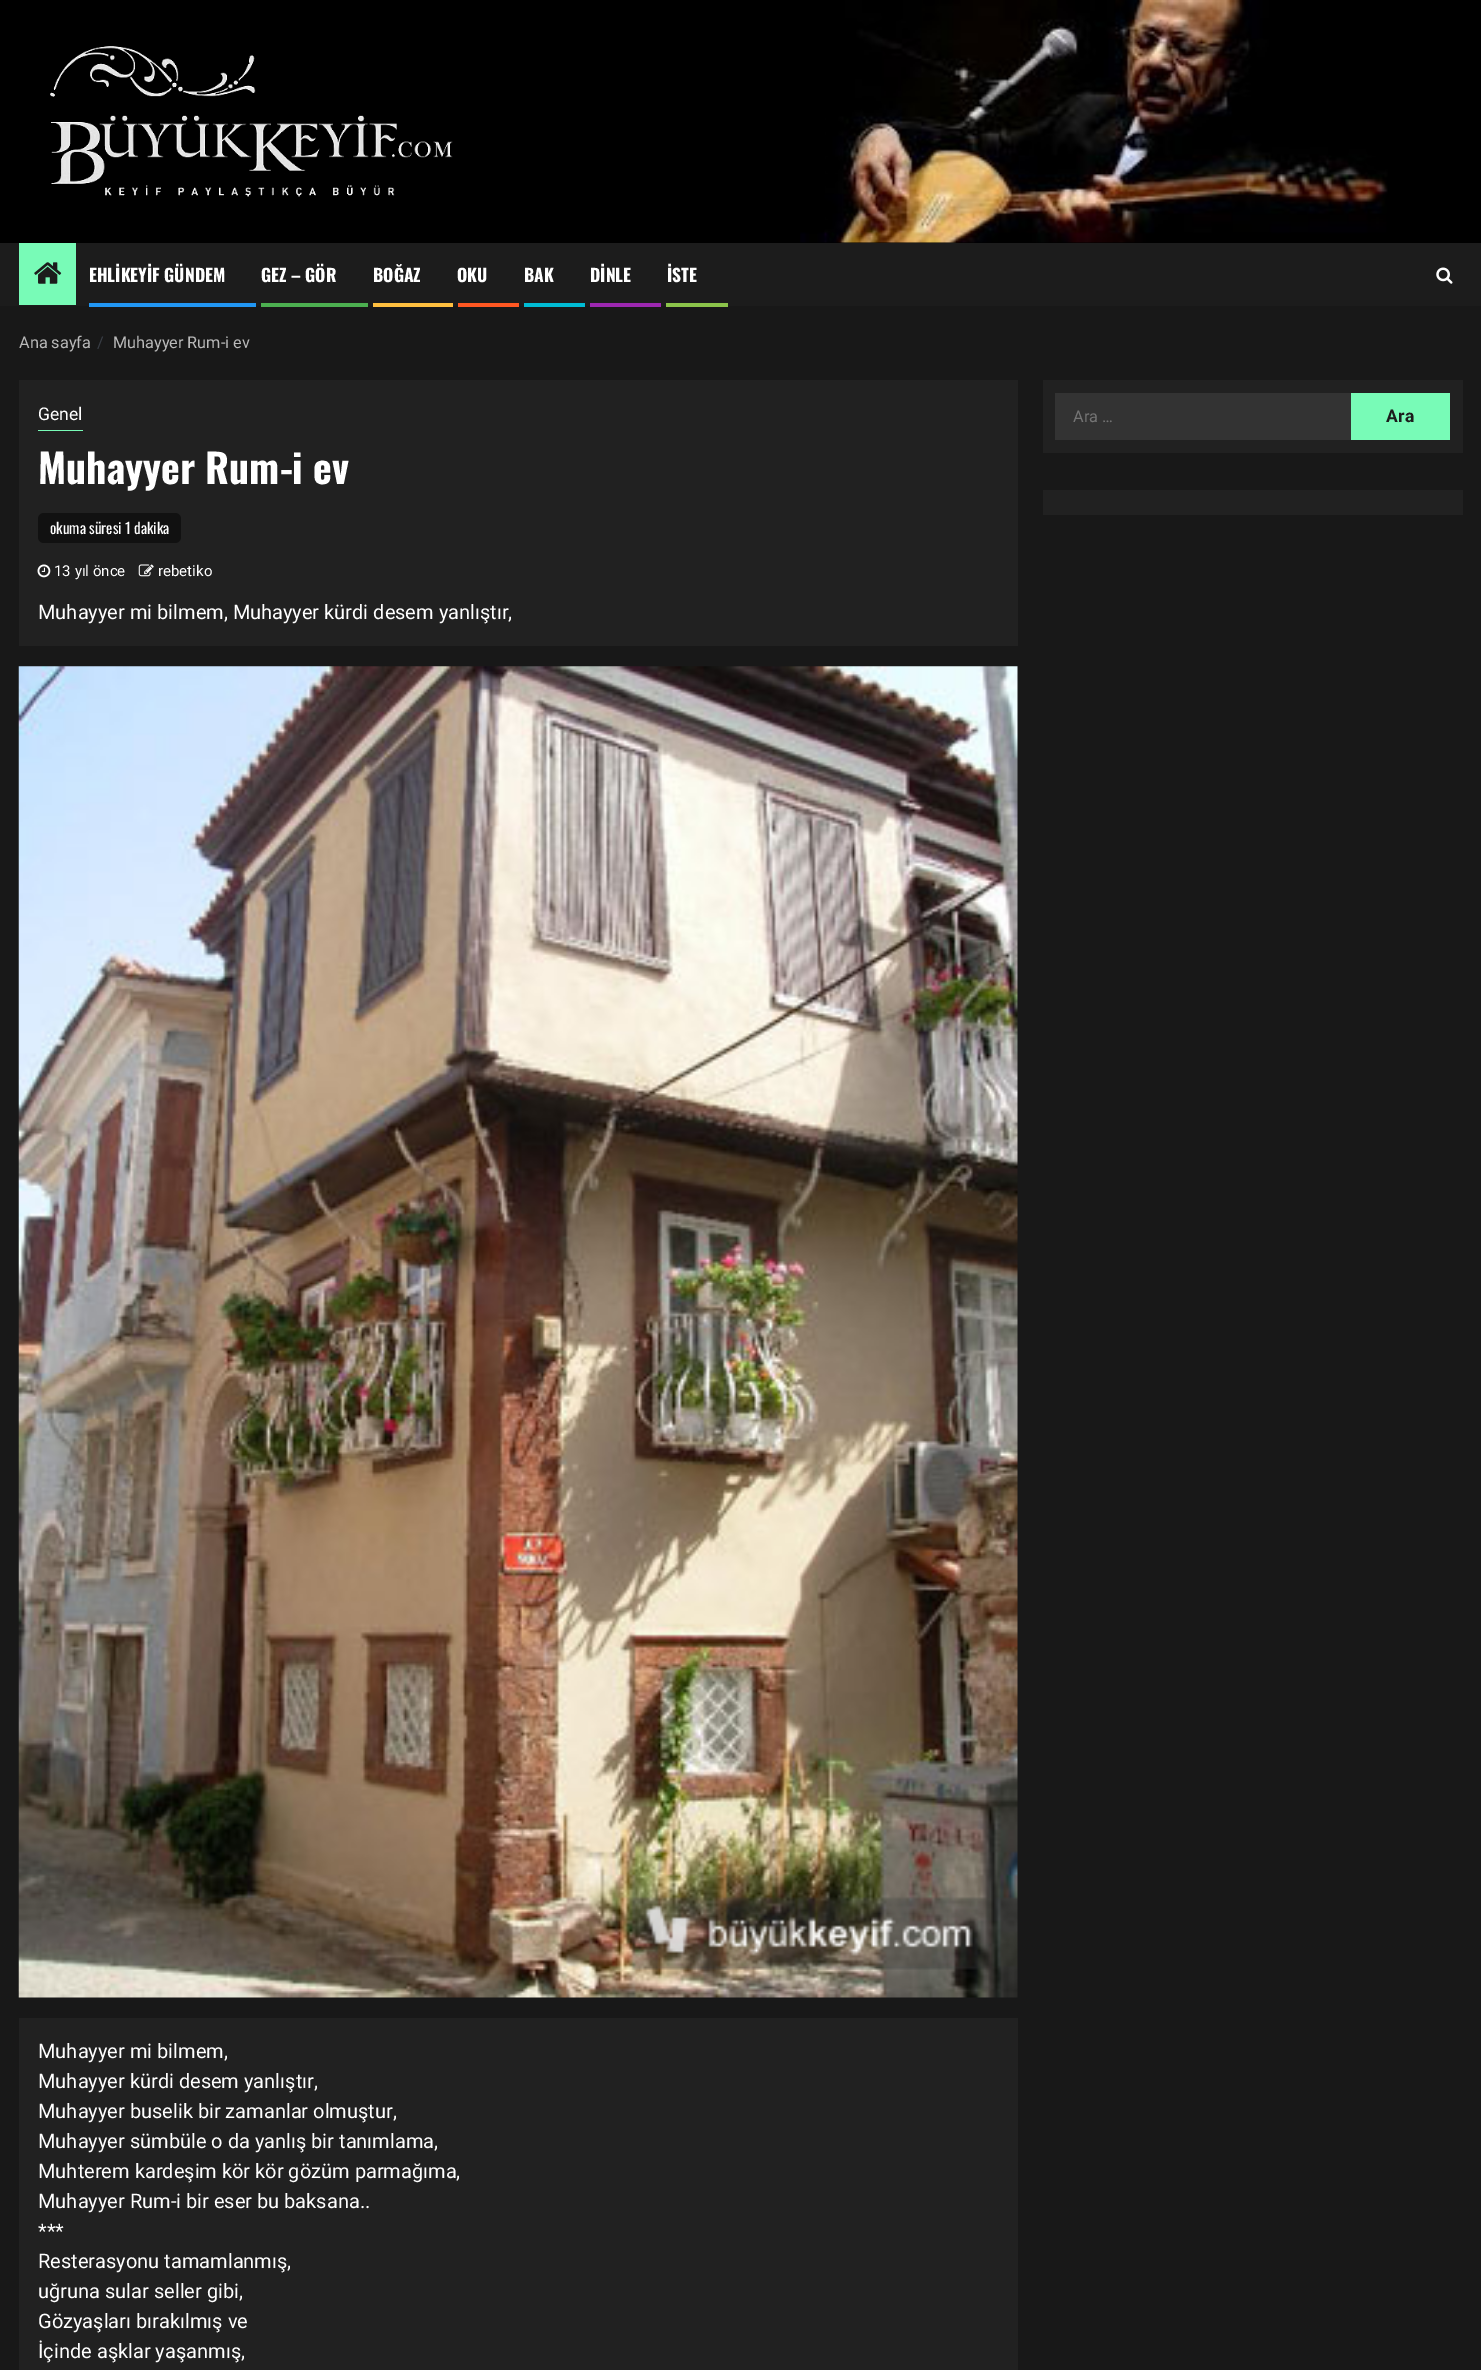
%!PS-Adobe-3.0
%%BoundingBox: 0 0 1481 2370
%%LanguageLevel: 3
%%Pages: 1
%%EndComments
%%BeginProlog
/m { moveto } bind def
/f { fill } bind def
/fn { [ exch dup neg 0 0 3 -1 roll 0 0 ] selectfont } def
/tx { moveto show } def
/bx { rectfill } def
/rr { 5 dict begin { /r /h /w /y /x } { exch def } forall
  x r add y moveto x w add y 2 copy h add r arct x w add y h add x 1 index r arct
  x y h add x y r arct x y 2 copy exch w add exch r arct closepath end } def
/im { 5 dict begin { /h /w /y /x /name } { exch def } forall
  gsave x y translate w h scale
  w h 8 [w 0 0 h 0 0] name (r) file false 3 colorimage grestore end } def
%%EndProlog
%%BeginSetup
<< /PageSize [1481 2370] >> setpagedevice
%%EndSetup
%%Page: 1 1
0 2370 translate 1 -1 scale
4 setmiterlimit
0.094 setgray
0 0 1481 2370 bx
0 setgray
0 0 1481 243 bx
(image0.raw) 800 0 588 243 im
(image1.raw) 50 46 403 151 im
0.11 setgray
0 243 1481 63 bx
0.471 0.984 0.718 setrgbcolor
19 243 57 62 bx
(image2.raw) 34 262 28 22 im
/Oswald-Bold 17.5 fn
1 setgray
(EHLİKEYİF GÜNDEM) 89 282 tx
0.129 0.588 0.953 setrgbcolor
89 303 167 4 bx
1 setgray
(GEZ – GÖR) 261 282 tx
0.298 0.686 0.314 setrgbcolor
261 303 107 4 bx
1 setgray
(BOĞAZ) 373 282 tx
1 0.749 0.247 setrgbcolor
373 303 80 4 bx
1 setgray
(OKU) 457 282 tx
1 0.341 0.133 setrgbcolor
458 303 61 4 bx
1 setgray
(BAK) 524 282 tx
0 0.737 0.831 setrgbcolor
524 303 61 4 bx
1 setgray
(DİNLE) 590 282 tx
0.612 0.153 0.69 setrgbcolor
590 303 71 4 bx
1 setgray
(İSTE) 667 282 tx
0.545 0.765 0.29 setrgbcolor
666 303 62 4 bx
(image3.raw) 1436 267 17 17 im
/Roboto-Regular 16.25 fn
0.729 setgray
(Ana sayfa) 19 348 tx
0.224 0.243 0.275 setrgbcolor
(/) 97 348 tx
0.729 setgray
(Muhayyer Rum-i ev) 113 348 tx
0.129 setgray
19 380 999 266 bx
0.471 0.984 0.718 setrgbcolor
38 430 45 1 bx
/Roboto-Regular 17.5 fn
1 setgray
(Genel) 38 420 tx
/Oswald-Bold 40 fn
(Muhayyer Rum-i ev) 38 484 tx
0.067 setgray
38 513 143 30 6 rr f
/Oswald-Regular 15 fn
1 setgray
(okuma süresi 1 dakika) 50 534 tx
(image4.raw) 37 564 14 14 im
/Roboto-Regular 15 fn
(13 yıl önce) 54 576 tx
(image5.raw) 138 564 16 13 im
(rebetiko) 158 576 tx
/Roboto-Regular 20 fn
(Muhayyer mi bilmem, Muhayyer kürdi desem yanlıştır,) 38 619 tx
(image6.raw) 18 666 1000 1332 im
0.129 setgray
19 2018 999 352 bx
1 setgray
(Muhayyer mi bilmem,) 38 2058 tx
(Muhayyer kürdi desem yanlıştır,) 38 2088 tx
(Muhayyer buselik bir zamanlar olmuştur,) 38 2118 tx
(Muhayyer sümbüle o da yanlış bir tanımlama,) 38 2148 tx
(Muhterem kardeşim kör kör gözüm parmağıma,) 38 2178 tx
(Muhayyer Rum-i bir eser bu baksana..) 38 2208 tx
(***) 38 2238 tx
(Resterasyonu tamamlanmış,) 38 2268 tx
(uğruna sular seller gibi,) 38 2298 tx
(Gözyaşları bırakılmış ve) 38 2328 tx
(İçinde aşklar yaşanmış,) 38 2358 tx
0.129 setgray
1043 380 420 73 bx
0.2 setgray
1055 393 296 47 bx
/Roboto-Regular 16.25 fn
0.459 setgray
(Ara …) 1073 422 tx
0.471 0.984 0.718 setrgbcolor
1351 393 99 47 bx
/Roboto-Bold 17.5 fn
0.11 setgray
1386 422 m 0.5 0 (Ara) ashow
0.129 setgray
1043 490 420 25 bx
showpage
%%EOF
